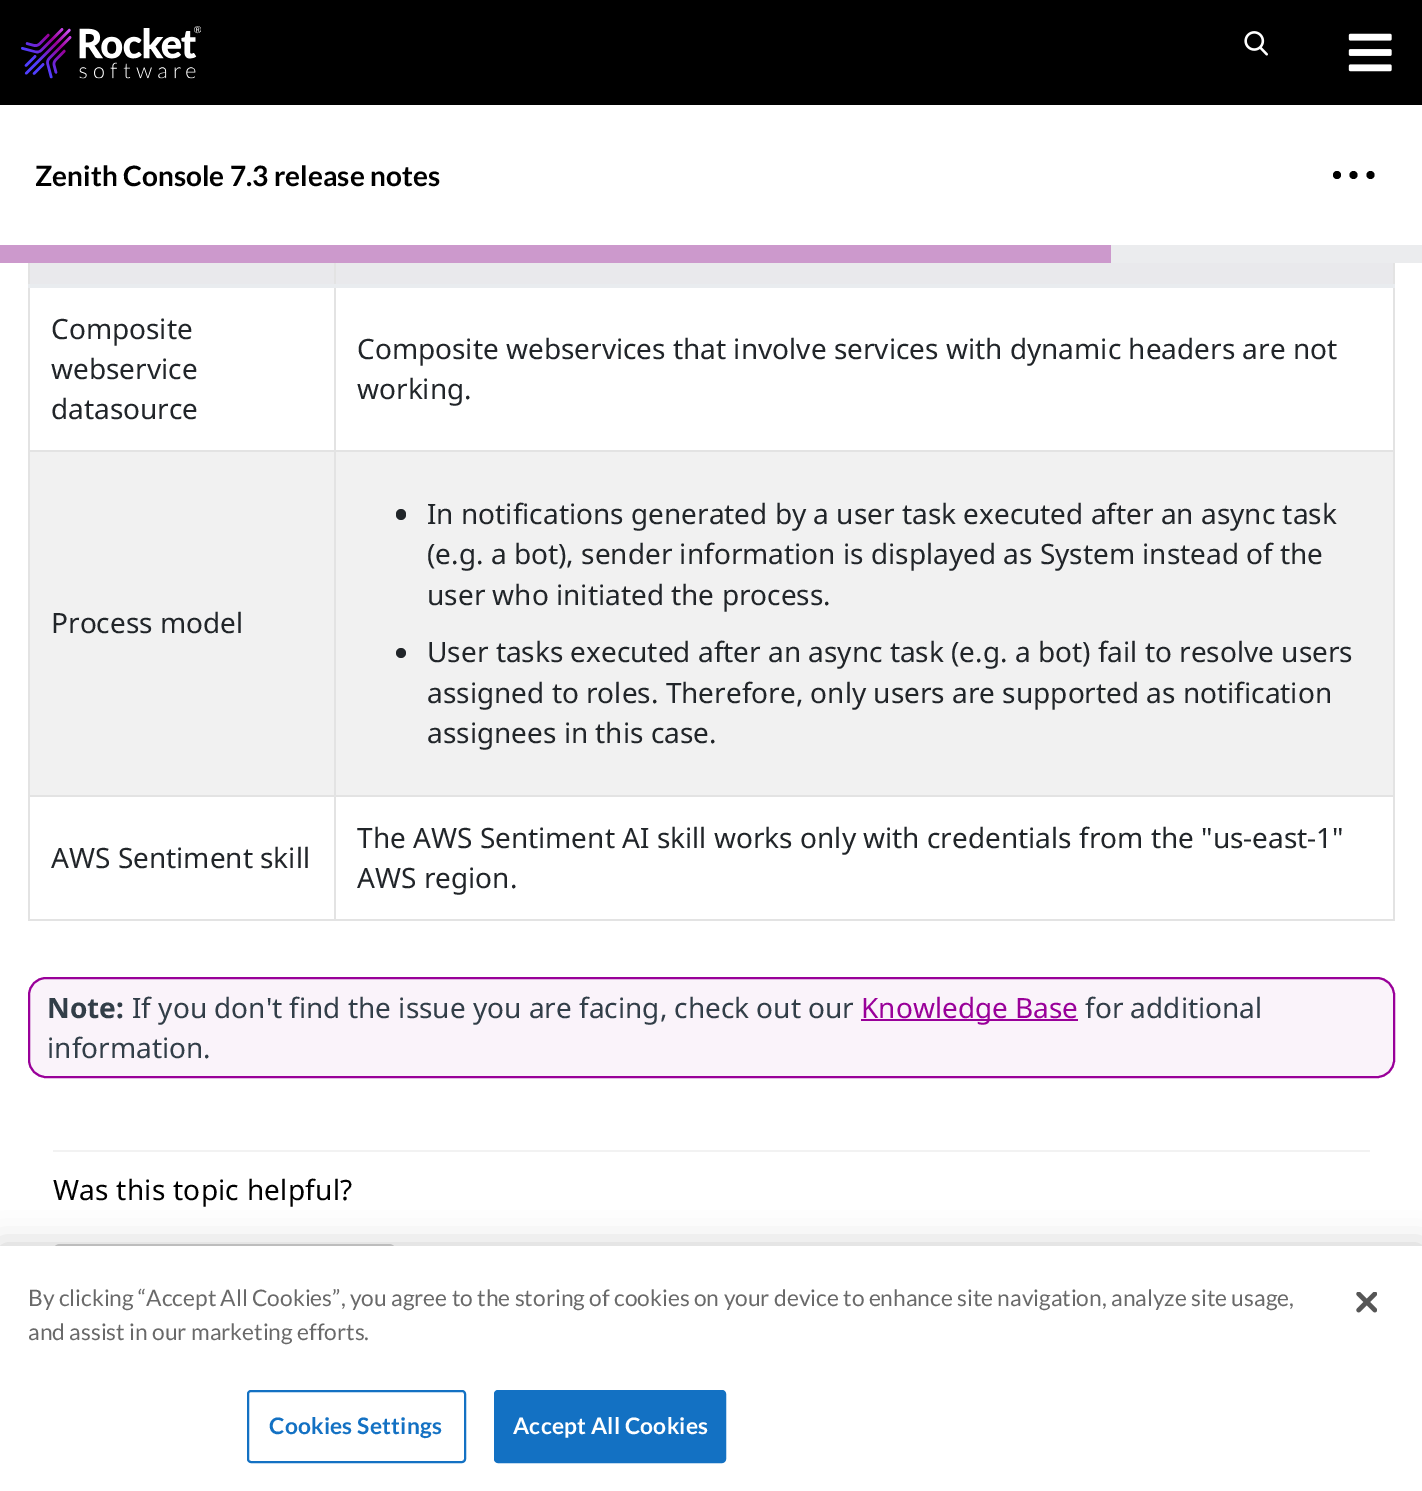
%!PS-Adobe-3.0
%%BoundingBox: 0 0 1422 1491
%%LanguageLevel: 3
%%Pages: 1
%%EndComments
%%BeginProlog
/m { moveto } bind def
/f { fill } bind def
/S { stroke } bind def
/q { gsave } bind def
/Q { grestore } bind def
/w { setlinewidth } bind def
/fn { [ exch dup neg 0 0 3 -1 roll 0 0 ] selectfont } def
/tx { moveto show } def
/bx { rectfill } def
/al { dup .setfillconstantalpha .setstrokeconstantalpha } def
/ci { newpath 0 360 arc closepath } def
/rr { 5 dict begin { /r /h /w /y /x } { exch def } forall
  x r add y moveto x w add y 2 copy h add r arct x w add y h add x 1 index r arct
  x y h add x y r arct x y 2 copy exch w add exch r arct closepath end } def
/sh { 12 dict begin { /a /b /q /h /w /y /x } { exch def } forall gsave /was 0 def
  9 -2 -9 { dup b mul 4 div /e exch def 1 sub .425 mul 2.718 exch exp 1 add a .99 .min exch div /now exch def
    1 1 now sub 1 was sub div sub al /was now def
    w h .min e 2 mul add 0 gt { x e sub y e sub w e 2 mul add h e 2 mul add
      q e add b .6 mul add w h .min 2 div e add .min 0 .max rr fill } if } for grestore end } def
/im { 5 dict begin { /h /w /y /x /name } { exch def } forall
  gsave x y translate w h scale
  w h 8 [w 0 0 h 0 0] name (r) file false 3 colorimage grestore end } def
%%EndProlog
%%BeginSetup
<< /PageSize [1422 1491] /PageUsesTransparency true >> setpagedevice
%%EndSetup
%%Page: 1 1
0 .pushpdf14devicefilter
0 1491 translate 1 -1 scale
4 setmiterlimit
1 setgray
0 0 1422 1491 bx
0 setgray
0 0 1422 105 bx
(image0.raw) 21 26 180 53 im
(image1.raw) 1244 31 24 25 im
(image2.raw) 1348 33 44 39 im
/Lato-Bold 28 fn
(Zenith Console 7.3 release notes) 35 186 tx
1337 175 4 ci f
1353.5 175 4 ci f
1370.5 175 4 ci f
0.8 0.6 0.8 setrgbcolor
0 245 1111 18 bx
0.922 0.925 0.933 setrgbcolor
1111 245 311 18 bx
0.914 0.914 0.925 setrgbcolor
30 263 1363 21 bx
0.945 setgray
30 452 1363 343 bx
0.89 setgray
1393 263 2 658 bx
334 919 1061 2 bx
334 795 2 126 bx
334 795 1061 2 bx
334 450 2 346 bx
334 450 1061 2 bx
334 263 2 189 bx
28 919 308 2 bx
28 795 2 126 bx
28 795 308 2 bx
28 450 2 346 bx
28 450 308 2 bx
28 263 2 189 bx
0.914 0.925 0.937 setrgbcolor
28 284 1367 4 bx
/NotoSans-Regular 28 fn
0.129 0.145 0.161 setrgbcolor
(Composite) 51 339 tx
(webservice) 51 379 tx
(datasource) 51 419 tx
(Composite webservices that involve services with dynamic headers are not) 357 359 tx
(working.) 357 399 tx
(Process model) 51 633 tx
396 509 10 11 5 rr f
(In notifications generated by a user task executed after an async task) 427 524 tx
(\(e.g. a bot\), sender information is displayed as System instead of the) 427 564 tx
(user who initiated the process.) 427 605 tx
401 653 5 ci f
(User tasks executed after an async task \(e.g. a bot\) fail to resolve users) 427 662 tx
(assigned to roles. Therefore, only users are supported as notification) 427 703 tx
(assignees in this case.) 427 743 tx
(AWS Sentiment skill) 51 868 tx
(The AWS Sentiment AI skill works only with credentials from the "us-east-1") 357 848 tx
(AWS region.) 357 888 tx
0.98 0.953 0.98 setrgbcolor
29 978 1365 99 17 rr q f Q
0.6 0 0.6 setrgbcolor
2 w
S
/NotoSans-Bold 28 fn
0.196 0.243 0.282 setrgbcolor
(Note:) 47 1018 tx
/NotoSans-Regular 28 fn
(If you don't find the issue you are facing, check out our) 132 1018 tx
0.6 0 0.6 setrgbcolor
861 1019 217 2 bx
(Knowledge Base) 861 1018 tx
0.196 0.243 0.282 setrgbcolor
(for additional) 1085 1018 tx
(information.) 47 1058 tx
0.949 setgray
53 1150 1317 2 bx
0 setgray
53 1200 m 0.25 0 (Was this topic helpful?) ashow
0.824 setgray
54 1245 341 68 6 rr S
0 setgray
0 1246 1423 245 0 16 0.2 sh
1 setgray
0 1246 1422 245 bx
/Lato-Regular 22.75 fn
0.412 setgray
(By clicking “Accept All Cookies”, you agree to the storing of cookies on your device to enhance site navigation, analyze site usage,) 28 1306 tx
(and assist in our marketing efforts.) 28 1340 tx
0.075 0.443 0.765 setrgbcolor
248 1391 217 71 3 rr S
/Lato-Bold 22.75 fn
269 1434 m 0.25 0 (Cookies Settings) ashow
495 1391 230 71 3 rr q f Q
S
1 setgray
513 1434 m 0.25 0 (Accept All Cookies) ashow
(image3.raw) 1356 1292 21 21 im
.poppdf14devicefilter showpage
%%EOF
